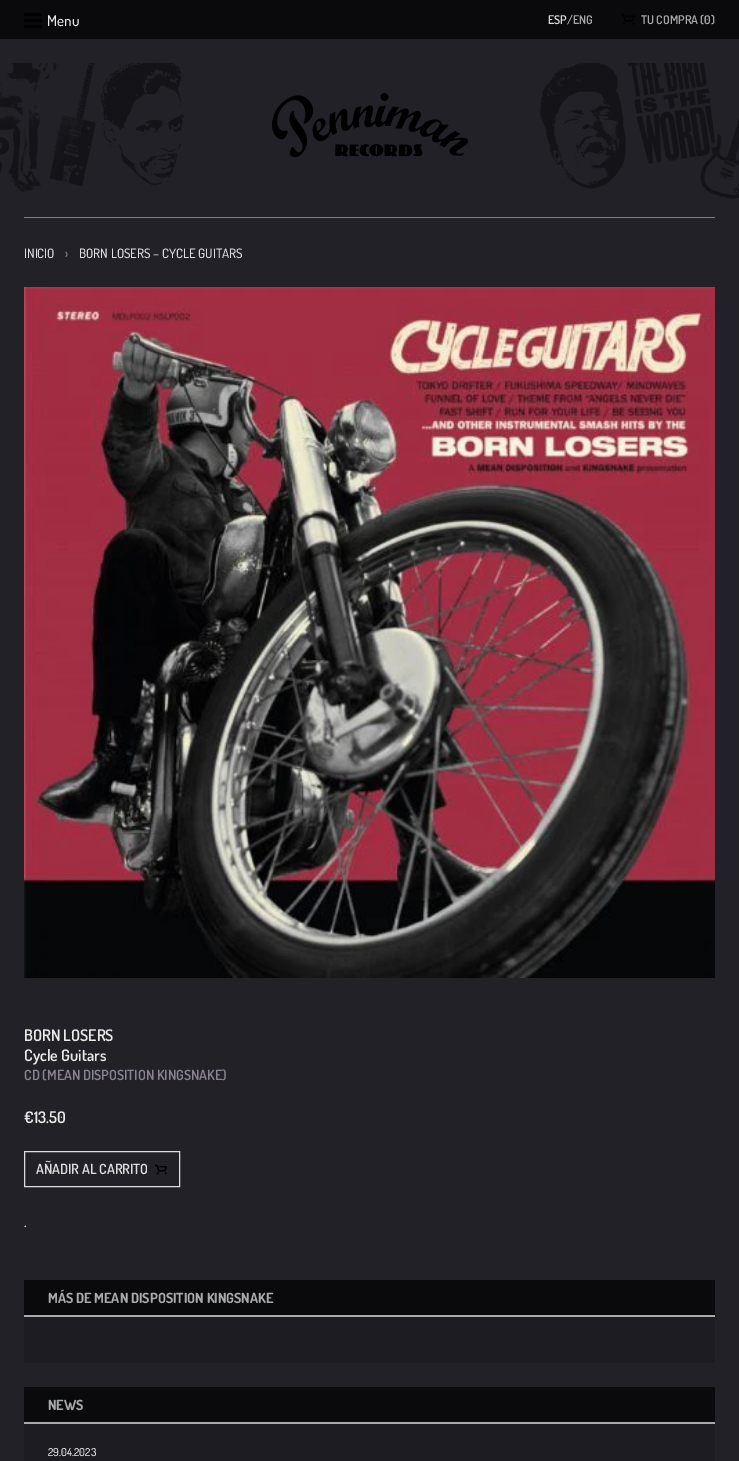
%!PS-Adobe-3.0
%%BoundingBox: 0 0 739 1461
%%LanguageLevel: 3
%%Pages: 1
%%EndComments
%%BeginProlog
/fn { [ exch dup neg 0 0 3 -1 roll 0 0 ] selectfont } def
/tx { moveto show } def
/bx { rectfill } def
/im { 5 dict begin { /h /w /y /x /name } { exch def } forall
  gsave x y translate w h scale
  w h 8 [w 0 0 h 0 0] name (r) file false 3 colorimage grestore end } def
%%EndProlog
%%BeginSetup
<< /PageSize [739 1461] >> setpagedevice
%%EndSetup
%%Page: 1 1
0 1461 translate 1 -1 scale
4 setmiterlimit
0.133 0.129 0.157 setrgbcolor
0 0 739 1461 bx
0.039 0.039 0.047 setrgbcolor
0 0 739 39 bx
(image0.raw) 24 13 18 15 im
/Dosis-Medium 15 fn
0.918 setgray
(Menu) 47 26 tx
/Dosis-SemiBold 12 fn
0.863 0.867 0.871 setrgbcolor
(ESP) 548 24 tx
0.655 0.663 0.671 setrgbcolor
(/ENG) 567 24 tx
(image1.raw) 621 14 14 11 im
(TU COMPRA \(0\)) 641 24 tx
(image2.raw) 0 63 184 129 im
(image3.raw) 272 93 197 65 im
(image4.raw) 540 63 199 136 im
0.498 0.498 0.514 setrgbcolor
24 217 691 1 bx
/Dosis-Medium 13 fn
0.863 0.867 0.871 setrgbcolor
(INICIO) 24 258 tx
0.541 0.514 0.58 setrgbcolor
(›) 65 258 tx
0.863 0.867 0.871 setrgbcolor
(BORN LOSERS – CYCLE GUITARS) 79 258 tx
(image5.raw) 24 287 691 691 im
/Dosis-SemiBold 16 fn
0.918 setgray
(BORN LOSERS) 24 1041 tx
(Cycle Guitars) 24 1061 tx
/Dosis-SemiBold 14 fn
0.541 0.514 0.58 setrgbcolor
(CD \(MEAN DISPOSITION KINGSNAKE\)) 24 1080 tx
/Dosis-SemiBold 16 fn
0.918 setgray
(€13.50) 24 1123 tx
0.863 0.867 0.871 setrgbcolor
24.5 1151.5 155 35 rectstroke
/Dosis-SemiBold 14 fn
(AÑADIR AL CARRITO) 36 1174 tx
(image6.raw) 154 1164 14 11 im
/Dosis-Medium 15 fn
0.918 setgray
(.) 24 1227 tx
0.114 0.11 0.137 setrgbcolor
24 1317 691 46 bx
0.039 0.039 0.047 setrgbcolor
24 1280 691 35 bx
0.655 0.663 0.671 setrgbcolor
24 1315 691 2 bx
/Dosis-Bold 14 fn
(MÁS DE MEAN DISPOSITION KINGSNAKE) 48 1303 tx
0.114 0.11 0.137 setrgbcolor
24 1424 691 37 bx
0.655 0.663 0.671 setrgbcolor
24 1422 691 2 bx
0.039 0.039 0.047 setrgbcolor
24 1387 691 35 bx
0.655 0.663 0.671 setrgbcolor
(NEWS) 48 1410 tx
/Dosis-Medium 11 fn
0.918 setgray
(29.04.2023) 48 1456 tx
showpage
%%EOF
